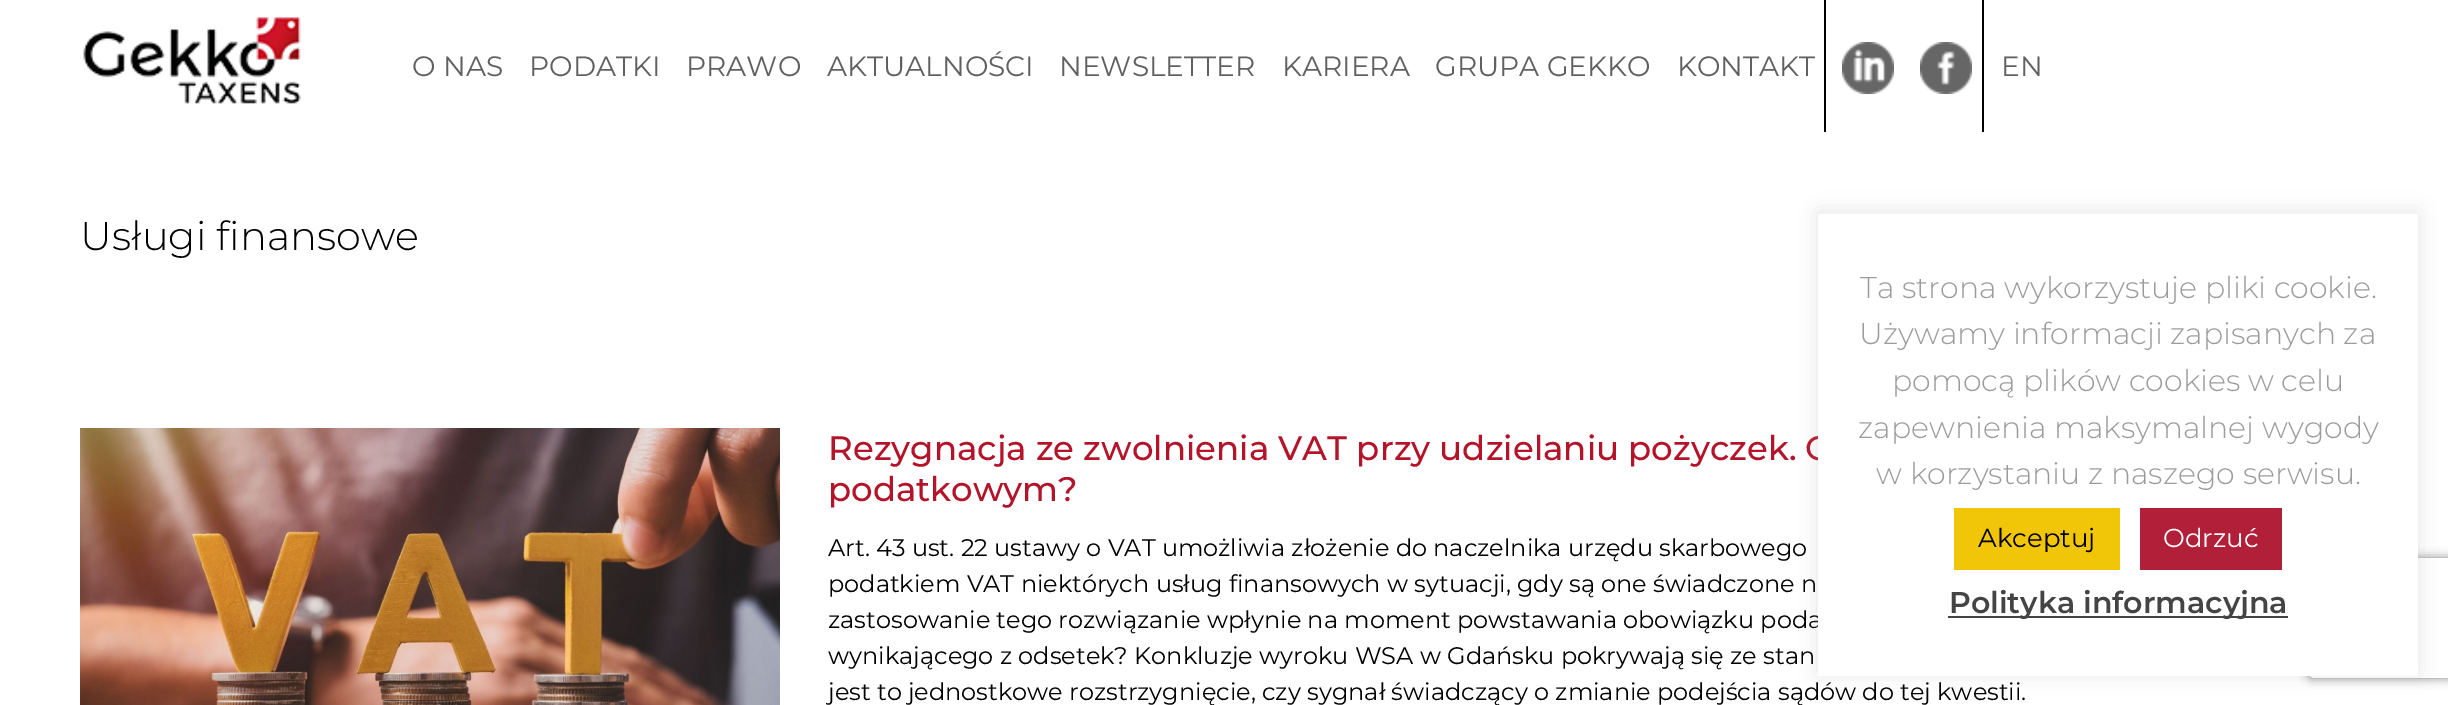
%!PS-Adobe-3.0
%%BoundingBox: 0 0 2448 705
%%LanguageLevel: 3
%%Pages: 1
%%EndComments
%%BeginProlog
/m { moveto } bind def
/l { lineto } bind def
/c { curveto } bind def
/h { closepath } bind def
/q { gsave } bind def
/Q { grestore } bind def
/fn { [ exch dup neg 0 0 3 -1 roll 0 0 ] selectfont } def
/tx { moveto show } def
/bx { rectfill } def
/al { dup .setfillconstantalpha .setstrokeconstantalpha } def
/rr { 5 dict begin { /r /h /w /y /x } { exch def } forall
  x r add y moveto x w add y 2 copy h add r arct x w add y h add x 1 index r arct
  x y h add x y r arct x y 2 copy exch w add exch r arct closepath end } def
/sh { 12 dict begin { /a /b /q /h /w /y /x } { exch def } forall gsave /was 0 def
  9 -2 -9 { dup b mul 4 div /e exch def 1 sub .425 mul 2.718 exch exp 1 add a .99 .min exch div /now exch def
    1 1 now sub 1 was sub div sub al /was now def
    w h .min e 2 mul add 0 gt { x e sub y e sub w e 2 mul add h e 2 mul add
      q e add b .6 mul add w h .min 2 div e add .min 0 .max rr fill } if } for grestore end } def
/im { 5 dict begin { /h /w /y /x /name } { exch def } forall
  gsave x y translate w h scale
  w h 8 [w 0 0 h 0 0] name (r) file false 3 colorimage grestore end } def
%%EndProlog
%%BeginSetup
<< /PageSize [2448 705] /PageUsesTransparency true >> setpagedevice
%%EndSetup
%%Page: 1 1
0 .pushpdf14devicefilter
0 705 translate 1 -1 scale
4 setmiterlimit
1 setgray
0 0 2448 705 bx
(image0.raw) 83 17 218 87 im
/Montserrat-Regular 28 fn
0.376 setgray
(O NAS) 412 76 tx
(PODATKI) 529 76 tx
(PRAWO) 686 76 tx
(AKTUALNOŚCI) 827 76 tx
(NEWSLETTER) 1059 76 tx
(KARIERA) 1282 76 tx
(GRUPA GEKKO) 1435 76 tx
0 setgray
1824 0 2 132 bx
0.376 setgray
(KONTAKT) 1677 76 tx
(image1.raw) 1842 42 52 52 im
0 setgray
1982 0 2 132 bx
(image2.raw) 1920 42 52 52 im
0.376 setgray
(EN) 2001 76 tx
/Montserrat-Light 40 fn
0 setgray
(Usługi finansowe) 80 250 tx
(image3.raw) 80 428 700 277 im
/Montserrat-Medium 34 fn
0.706 0.078 0.165 setrgbcolor
(Rezygnacja ze zwolnienia VAT przy udzielaniu pożyczek. C) 828 460 tx
(podatkowym?) 828 501 tx
/Montserrat-Regular 24 fn
0 setgray
(Art. 43 ust. 22 ustawy o VAT umożliwia złożenie do naczelnika urzędu skarbowego) 828 556 tx
(podatkiem VAT niektórych usług finansowych w sytuacji, gdy są one świadczone n) 828 592 tx
(zastosowanie tego rozwiązanie wpłynie na moment powstawania obowiązku poda) 828 628 tx
(wynikającego z odsetek? Konkluzje wyroku WSA w Gdańsku pokrywają się ze stan) 828 664 tx
(jest to jednostkowe rozstrzygnięcie, czy sygnał świadczący o zmianie podejścia sądów do tej kwestii.) 828 700 tx
0.675 0.671 0.671 setrgbcolor
1818 212 600 462 0 10 0.3 sh
q
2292 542 m 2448 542 l 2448 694 l 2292 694 l h 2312 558 m 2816 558 l 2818 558 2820 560 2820 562 c 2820 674 l 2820 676 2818 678 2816 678 c 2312 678 l 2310 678 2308 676 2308 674 c 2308 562 l 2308 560 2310 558 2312 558 c h eoclip newpath
0.502 setgray
2308 558 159 120 4 5 1 sh
Q
1 setgray
1818 214 600 462 bx
/Montserrat-Light 30 fn
0.608 setgray
(Ta strona wykorzystuje pliki cookie.) 1860 298 tx
(Używamy informacji zapisanych za) 1859 344 tx
(pomocą plików cookies w celu) 1892 391 tx
(zapewnienia maksymalnej wygody) 1858 438 tx
(w korzystaniu z naszego serwisu.) 1876 484 tx
0.949 0.776 0.031 setrgbcolor
1954 508 166 62 bx
/Montserrat-Regular 26 fn
0 setgray
(Akceptuj) 1978 547 tx
0.694 0.125 0.22 setrgbcolor
2140 508 142 62 bx
1 setgray
(Odrzuć) 2163 547 tx
0.267 setgray
1948 616 340 2 bx
/Montserrat-SemiBold 30 fn
(Polityka informacyjna) 1949 613 tx
.poppdf14devicefilter showpage
%%EOF
